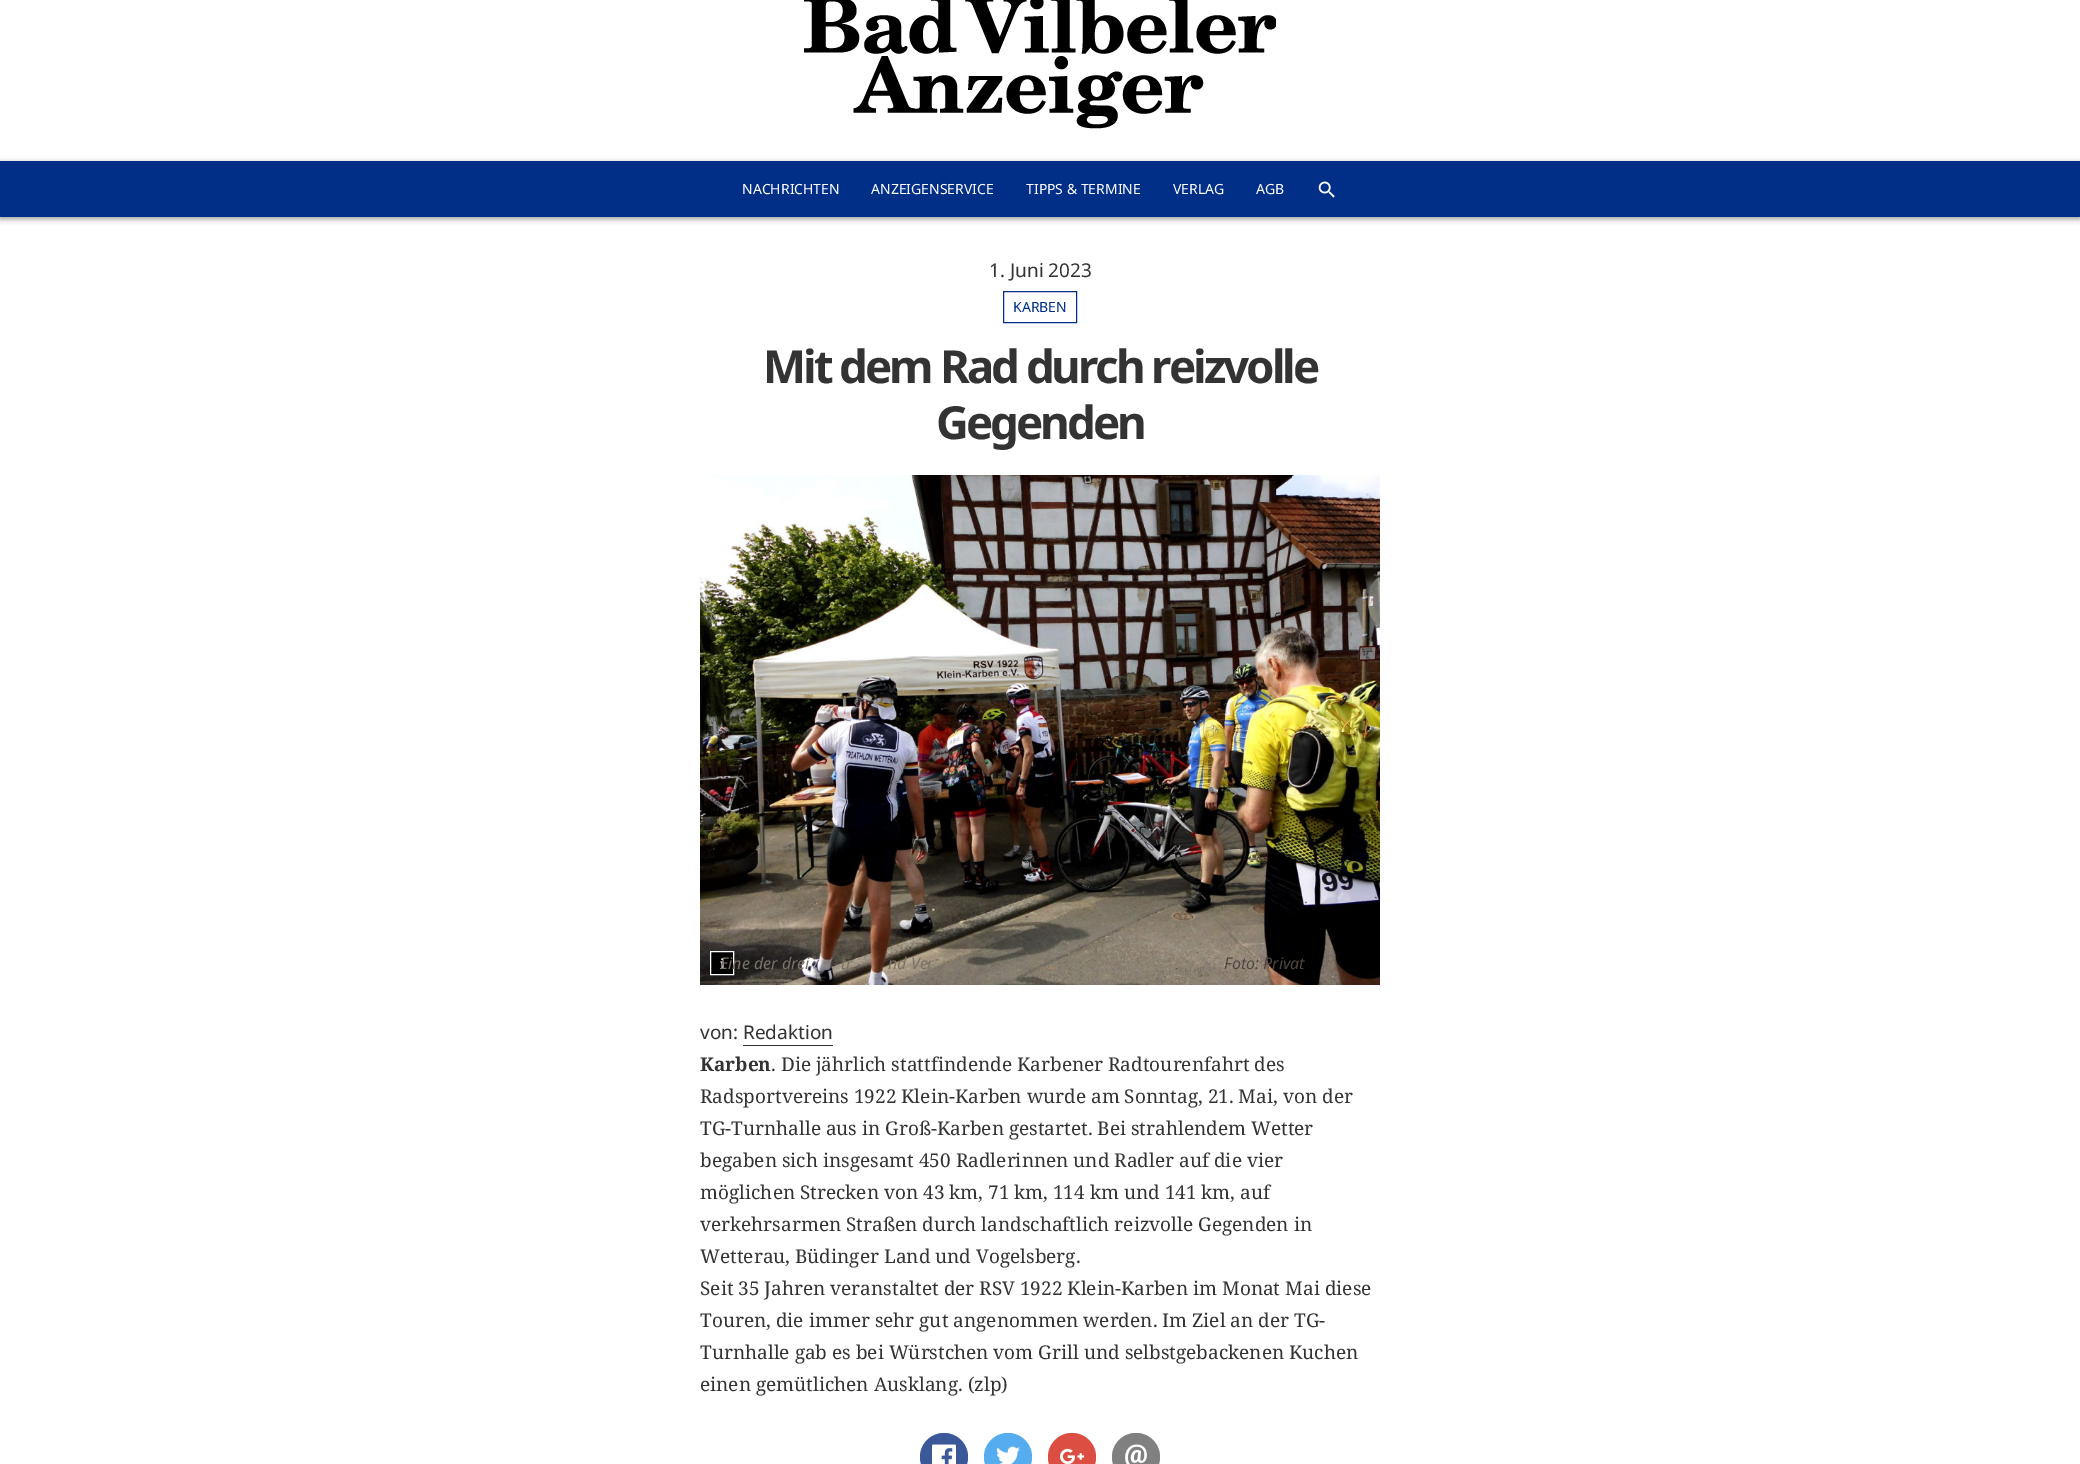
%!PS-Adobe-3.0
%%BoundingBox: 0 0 2080 1464
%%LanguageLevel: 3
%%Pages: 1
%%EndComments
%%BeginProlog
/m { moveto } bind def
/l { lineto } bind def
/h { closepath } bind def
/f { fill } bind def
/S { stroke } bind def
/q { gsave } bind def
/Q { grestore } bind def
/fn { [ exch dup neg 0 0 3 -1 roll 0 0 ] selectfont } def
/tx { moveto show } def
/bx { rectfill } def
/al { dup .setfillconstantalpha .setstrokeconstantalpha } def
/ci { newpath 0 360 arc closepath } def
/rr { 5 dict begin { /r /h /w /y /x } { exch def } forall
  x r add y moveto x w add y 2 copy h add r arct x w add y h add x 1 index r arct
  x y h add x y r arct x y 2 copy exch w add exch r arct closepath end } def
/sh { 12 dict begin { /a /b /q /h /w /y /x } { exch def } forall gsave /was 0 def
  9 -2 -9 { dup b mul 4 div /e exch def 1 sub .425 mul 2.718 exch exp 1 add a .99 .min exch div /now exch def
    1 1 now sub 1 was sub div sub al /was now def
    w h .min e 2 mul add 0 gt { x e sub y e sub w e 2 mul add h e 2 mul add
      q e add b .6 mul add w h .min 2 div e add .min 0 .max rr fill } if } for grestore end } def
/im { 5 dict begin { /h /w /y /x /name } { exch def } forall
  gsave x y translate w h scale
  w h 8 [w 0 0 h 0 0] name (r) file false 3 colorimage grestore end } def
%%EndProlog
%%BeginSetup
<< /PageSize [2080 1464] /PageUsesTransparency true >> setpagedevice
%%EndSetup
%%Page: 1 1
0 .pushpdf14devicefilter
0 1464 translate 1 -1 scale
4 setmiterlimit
1 setgray
0 0 2080 1464 bx
(image0.raw) 804 0 472 129 im
0 setgray
0 163 2080 56 0 3 0.4 sh
0.004 0.184 0.529 setrgbcolor
0 161 2080 56 bx
/NotoSans-Regular 14 fn
1 setgray
(NACHRICHTEN) 742 194 tx
(ANZEIGENSERVICE) 871 194 tx
(TIPPS & TERMINE) 1026 194 tx
(VERLAG) 1173 194 tx
(AGB) 1256 194 tx
(image1.raw) 1318 181 17 17 im
/NotoSans-Regular 19 fn
0.2 setgray
(1. Juni 2023) 989 277 tx
0.004 0.184 0.529 setrgbcolor
1003.5 291.5 73 31 rectstroke
/NotoSans-Regular 14 fn
(KARBEN) 1013 312 tx
/NotoSans-Bold 45.6 fn
0.2 setgray
763 383 m -3 0 (Mit dem Rad durch reizvolle) ashow
936 439 m -3 0 (Gegenden) ashow
(image2.raw) 700 475 680 510 im
0 setgray
710.5 951.5 m 733.5 951.5 l 733.5 974.5 l 710.5 974.5 l h q f Q
1 setgray
S
/NotoSerif-Bold 14 fn
(i) 720 969 tx
/NotoSans-Italic 16 fn
0.478 0.447 0.4 setrgbcolor
(Eine der drei) 720 969 tx
(tr) 841 969 tx
(nd Ver) 888 969 tx
0.302 0.275 0.247 setrgbcolor
(Foto: Privat) 1224 969 tx
/NotoSans-Regular 19 fn
0.2 setgray
(von: Redaktion) 700 1039 tx
743 1045 90 1 bx
/NotoSerif-Bold 19 fn
(Karben) 700 1071 tx
/NotoSerif-Regular 19 fn
(. Die jährlich stattfindende Karbener Radtourenfahrt des) 771 1071 tx
(Radsportvereins 1922 Klein-Karben wurde am Sonntag, 21. Mai, von der) 700 1103 tx
(TG-Turnhalle aus in Groß-Karben gestartet. Bei strahlendem Wetter) 700 1135 tx
(begaben sich insgesamt 450 Radlerinnen und Radler auf die vier) 700 1167 tx
(möglichen Strecken von 43 km, 71 km, 114 km und 141 km, auf) 700 1199 tx
(verkehrsarmen Straßen durch landschaftlich reizvolle Gegenden in) 700 1231 tx
(Wetterau, Büdinger Land und Vogelsberg.) 700 1263 tx
(Seit 35 Jahren veranstaltet der RSV 1922 Klein-Karben im Monat Mai diese) 700 1295 tx
(Touren, die immer sehr gut angenommen werden. Im Ziel an der TG-) 700 1327 tx
(Turnhalle gab es bei Würstchen vom Grill und selbstgebackenen Kuchen) 700 1359 tx
(einen gemütlichen Ausklang. \(zlp\)) 700 1391 tx
0.231 0.349 0.596 setrgbcolor
944 1457 24 ci f
(image3.raw) 932 1444 24 20 im
0.333 0.675 0.933 setrgbcolor
1008 1457 24 ci f
(image4.raw) 997 1446 23 18 im
0.863 0.306 0.255 setrgbcolor
1072 1457 24 ci f
(image5.raw) 1060 1448 24 16 im
0.502 setgray
1136 1457 24 ci f
(image6.raw) 1125 1444 22 20 im
.poppdf14devicefilter showpage
%%EOF
